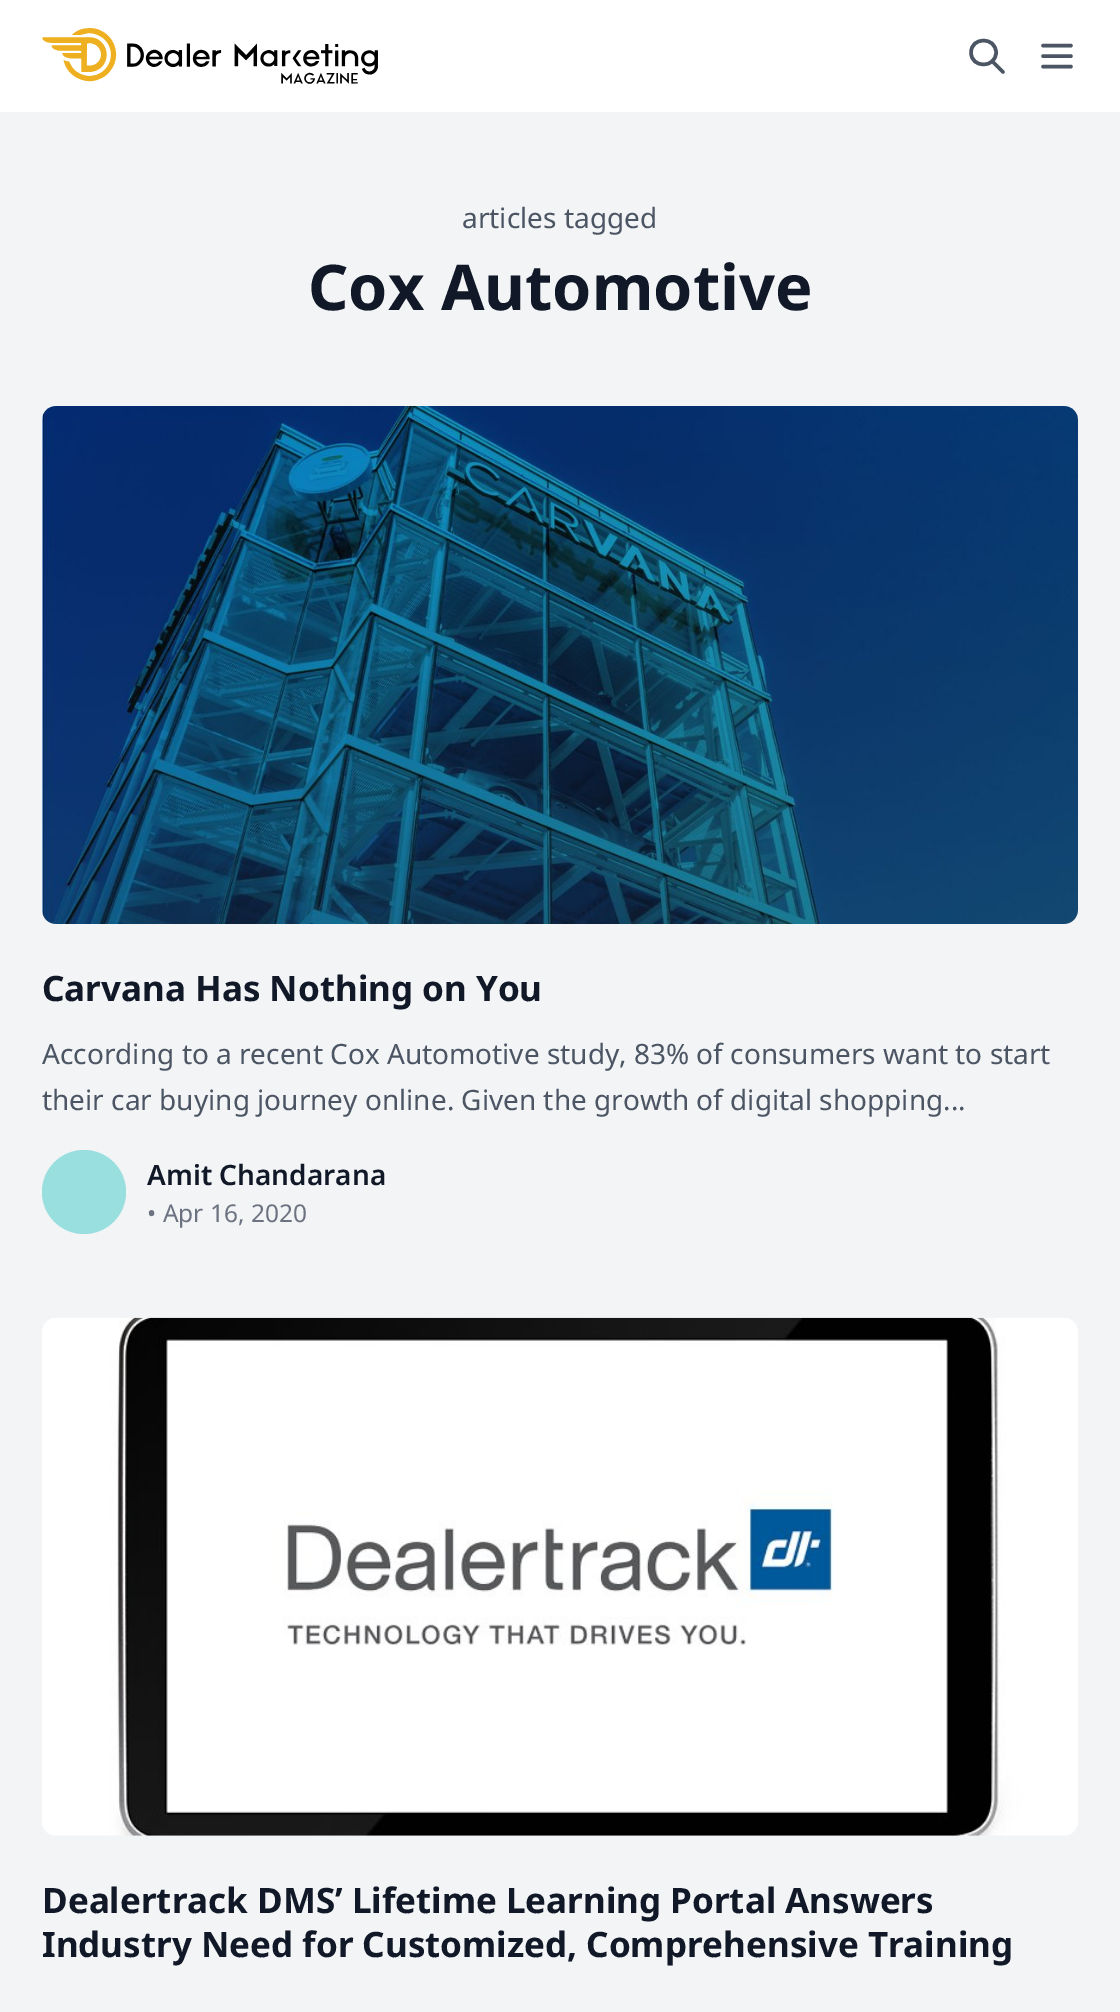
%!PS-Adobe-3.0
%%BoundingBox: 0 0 1120 2012
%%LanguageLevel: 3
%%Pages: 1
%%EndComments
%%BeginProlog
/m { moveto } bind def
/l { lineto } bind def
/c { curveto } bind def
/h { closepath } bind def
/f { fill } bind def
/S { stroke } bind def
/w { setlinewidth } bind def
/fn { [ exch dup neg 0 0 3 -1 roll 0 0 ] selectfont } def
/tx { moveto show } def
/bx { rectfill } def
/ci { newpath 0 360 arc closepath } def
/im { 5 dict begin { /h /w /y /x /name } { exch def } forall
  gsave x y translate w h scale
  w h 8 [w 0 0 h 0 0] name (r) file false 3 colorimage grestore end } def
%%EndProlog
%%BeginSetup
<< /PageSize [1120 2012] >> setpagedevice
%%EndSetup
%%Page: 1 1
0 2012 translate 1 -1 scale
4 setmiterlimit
1 setgray
0 0 1120 2012 bx
(image0.raw) 42 28 336 56 im
0.294 0.333 0.388 setrgbcolor
3.5 w
1 setlinecap
1 setlinejoin
1003 72 m 992 61 l 996 52.5 m 996 68.5 971 68.5 971 52.5 c 971 36.5 996 36.5 996 52.5 c h S
1043 45.5 m 1071 45.5 l 1043 56 m 1071 56 l 1043 66.5 m 1071 66.5 l S
0.953 0.957 0.965 setrgbcolor
0 112 1120 1900 bx
/NotoSans-Regular 28 fn
0.294 0.333 0.388 setrgbcolor
(articles tagged) 462 228 tx
/NotoSans-Bold 63 fn
0.067 0.094 0.153 setrgbcolor
(Cox Automotive) 308 310 tx
(image1.raw) 42 406 1036 518 im
/NotoSans-Bold 35 fn
(Carvana Has Nothing on You) 42 1001 tx
/NotoSans-Regular 28 fn
0.294 0.333 0.388 setrgbcolor
(According to a recent Cox Automotive study, 83% of consumers want to start) 42 1064 tx
(their car buying journey online. Given the growth of digital shopping...) 42 1110 tx
0.6 0.875 0.875 setrgbcolor
84 1192 42 ci f
/NotoSans-SemiBold 28 fn
0.067 0.094 0.153 setrgbcolor
(Amit Chandarana) 147 1185 tx
/NotoSans-Regular 24.5 fn
0.42 0.447 0.502 setrgbcolor
(• Apr 16, 2020) 147 1222 tx
(image2.raw) 42 1317 1036 519 im
/NotoSans-Bold 35 fn
0.067 0.094 0.153 setrgbcolor
(Dealertrack DMS’ Lifetime Learning Portal Answers) 42 1913 tx
(Industry Need for Customized, Comprehensive Training) 42 1957 tx
showpage
%%EOF
